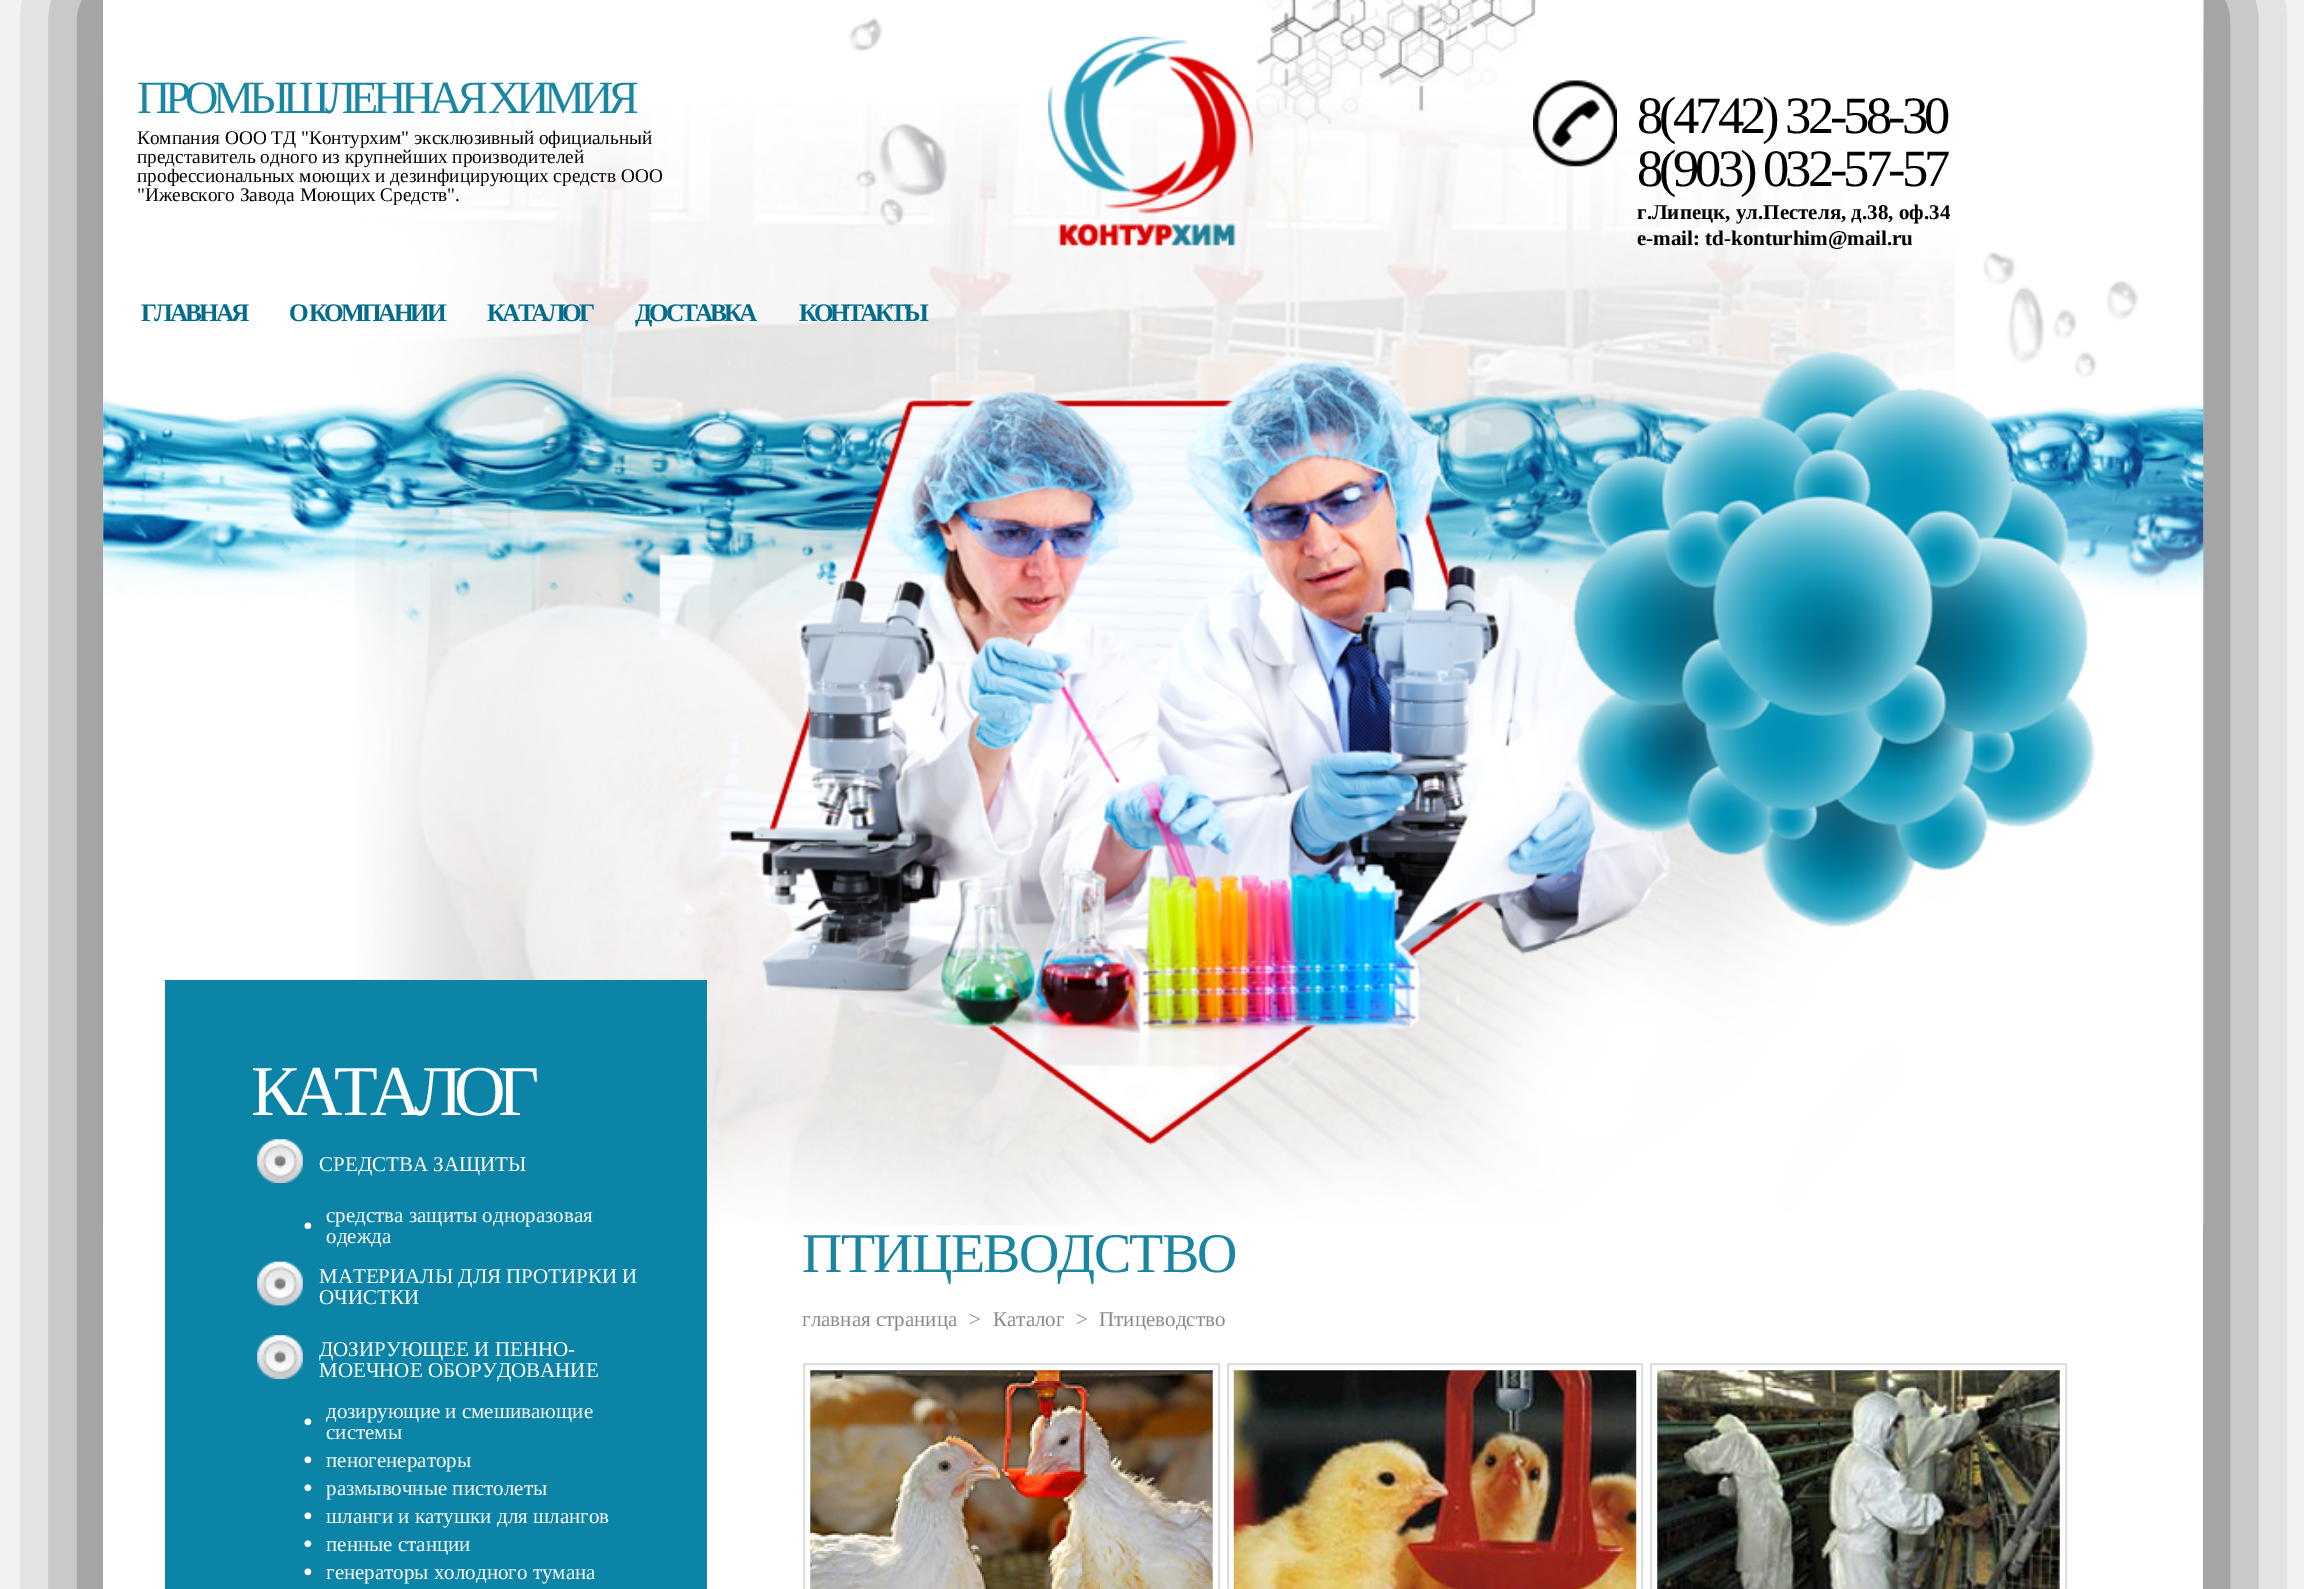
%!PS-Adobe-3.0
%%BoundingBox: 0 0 2304 1589
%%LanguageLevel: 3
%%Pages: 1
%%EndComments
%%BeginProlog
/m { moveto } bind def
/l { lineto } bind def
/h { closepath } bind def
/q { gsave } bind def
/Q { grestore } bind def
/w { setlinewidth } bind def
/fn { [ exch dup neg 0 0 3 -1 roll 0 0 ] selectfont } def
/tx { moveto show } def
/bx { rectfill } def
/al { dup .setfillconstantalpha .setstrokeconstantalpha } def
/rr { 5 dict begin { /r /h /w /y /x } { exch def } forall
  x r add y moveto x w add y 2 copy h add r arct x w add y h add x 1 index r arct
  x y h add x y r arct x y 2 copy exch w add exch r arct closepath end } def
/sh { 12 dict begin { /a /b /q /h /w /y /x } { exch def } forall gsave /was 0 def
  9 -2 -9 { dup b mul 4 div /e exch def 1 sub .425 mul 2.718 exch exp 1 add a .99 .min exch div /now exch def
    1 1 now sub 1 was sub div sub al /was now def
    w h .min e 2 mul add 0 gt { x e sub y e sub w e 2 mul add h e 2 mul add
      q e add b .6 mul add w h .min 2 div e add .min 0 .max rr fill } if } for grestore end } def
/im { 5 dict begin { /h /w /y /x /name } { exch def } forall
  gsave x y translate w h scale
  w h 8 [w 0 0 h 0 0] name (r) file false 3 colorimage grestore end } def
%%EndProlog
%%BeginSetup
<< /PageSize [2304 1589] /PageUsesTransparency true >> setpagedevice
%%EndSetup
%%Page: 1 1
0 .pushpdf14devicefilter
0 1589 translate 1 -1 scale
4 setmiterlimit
1 setgray
0 0 2304 1589 bx
q
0 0 m 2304 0 l 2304 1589 l 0 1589 l h 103 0 m 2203 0 l 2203 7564 l 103 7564 l h eoclip newpath
0.282 setgray
91 -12 2125 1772 0 57 1 sh
Q
(image0.raw) 103 0 2101 1225 im
/LiberationSerif-Regular 46.25 fn
0.106 0.525 0.631 setrgbcolor
137 113 m -5.5 0 (ПРОМЫШЛЕННАЯ ХИМИЯ) ashow
/LiberationSerif-Regular 19.25 fn
0 setgray
(Компания ООО ТД "Контурхим" эксклюзивный официальный) 137 144 tx
(представитель одного из крупнейших производителей) 137 163 tx
(профессиональных моющих и дезинфицирующих средств ООО) 137 182 tx
("Ижевского Завода Моющих Средств".) 137 201 tx
(image1.raw) 1048 36 205 211 im
(image2.raw) 1533 80 84 87 im
/LiberationSerif-Regular 52.5 fn
1637 133 m -3.9 0 (8\(4742\) 32-58-30) ashow
1637 186 m -3.9 0 (8\(903\) 032-57-57) ashow
/LiberationSerif-Bold 21 fn
(г.Липецк, ул.Пестеля, д.38, оф.34) 1637 219 tx
(e-mail: td-konturhim@mail.ru) 1637 245 tx
/LiberationSerif-Bold 25.25 fn
0.008 0.424 0.549 setrgbcolor
141 321 m -3 0 (ГЛАВНАЯ) ashow
289 321 m -3 0 (О КОМПАНИИ) ashow
487 321 m -3 0 (КАТАЛОГ) ashow
635 321 m -3 0 (ДОСТАВКА) ashow
799 321 m -3.25 0 (КОНТАКТЫ) ashow
0.047 0.518 0.659 setrgbcolor
165 980 542 609 bx
/LiberationSerif-Regular 71.5 fn
1 setgray
251 1115 m -8 0 (КАТАЛОГ) ashow
(image3.raw) 257 1139 46 44 im
/LiberationSerif-Regular 21 fn
(СРЕДСТВА ЗАЩИТЫ) 319 1171 tx
/LiberationSerif-Regular 28 fn
(•) 303 1235 tx
/LiberationSerif-Regular 21 fn
(средства защиты одноразовая) 326 1222 tx
(одежда) 326 1243 tx
(image4.raw) 257 1261 46 45 im
(МАТЕРИАЛЫ ДЛЯ ПРОТИРКИ И) 319 1283 tx
(ОЧИСТКИ) 319 1304 tx
(image3.raw) 257 1335 46 44 im
(ДОЗИРУЮЩЕЕ И ПЕННО-) 319 1356 tx
(МОЕЧНОЕ ОБОРУДОВАНИЕ) 319 1377 tx
/LiberationSerif-Regular 28 fn
(•) 303 1431 tx
/LiberationSerif-Regular 21 fn
(дозирующие и смешивающие) 326 1418 tx
(системы) 326 1439 tx
/LiberationSerif-Regular 28 fn
(•) 303 1469 tx
/LiberationSerif-Regular 21 fn
(пеногенераторы) 326 1467 tx
/LiberationSerif-Regular 28 fn
(•) 303 1497 tx
/LiberationSerif-Regular 21 fn
(размывочные пистолеты) 326 1495 tx
/LiberationSerif-Regular 28 fn
(•) 303 1525 tx
/LiberationSerif-Regular 21 fn
(шланги и катушки для шлангов) 326 1523 tx
/LiberationSerif-Regular 28 fn
(•) 303 1553 tx
/LiberationSerif-Regular 21 fn
(пенные станции) 326 1551 tx
/LiberationSerif-Regular 28 fn
(•) 303 1581 tx
/LiberationSerif-Regular 21 fn
(генераторы холодного тумана) 326 1579 tx
/LiberationSerif-Regular 56 fn
0.106 0.525 0.631 setrgbcolor
802 1272 m -1.75 0 (ПТИЦЕВОДСТВО) ashow
/LiberationSerif-Regular 21 fn
0.533 setgray
(главная страница) 802 1326 tx
(>) 969 1326 tx
(Каталог) 993 1326 tx
(>) 1076 1326 tx
(Птицеводство) 1099 1326 tx
0.871 setgray
2 w
804 1364 415 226 rectstroke
(image5.raw) 810 1370 403 219 im
1228 1364 414 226 rectstroke
(image6.raw) 1233 1370 404 219 im
1651 1364 415 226 rectstroke
(image7.raw) 1657 1370 403 219 im
.poppdf14devicefilter showpage
%%EOF
